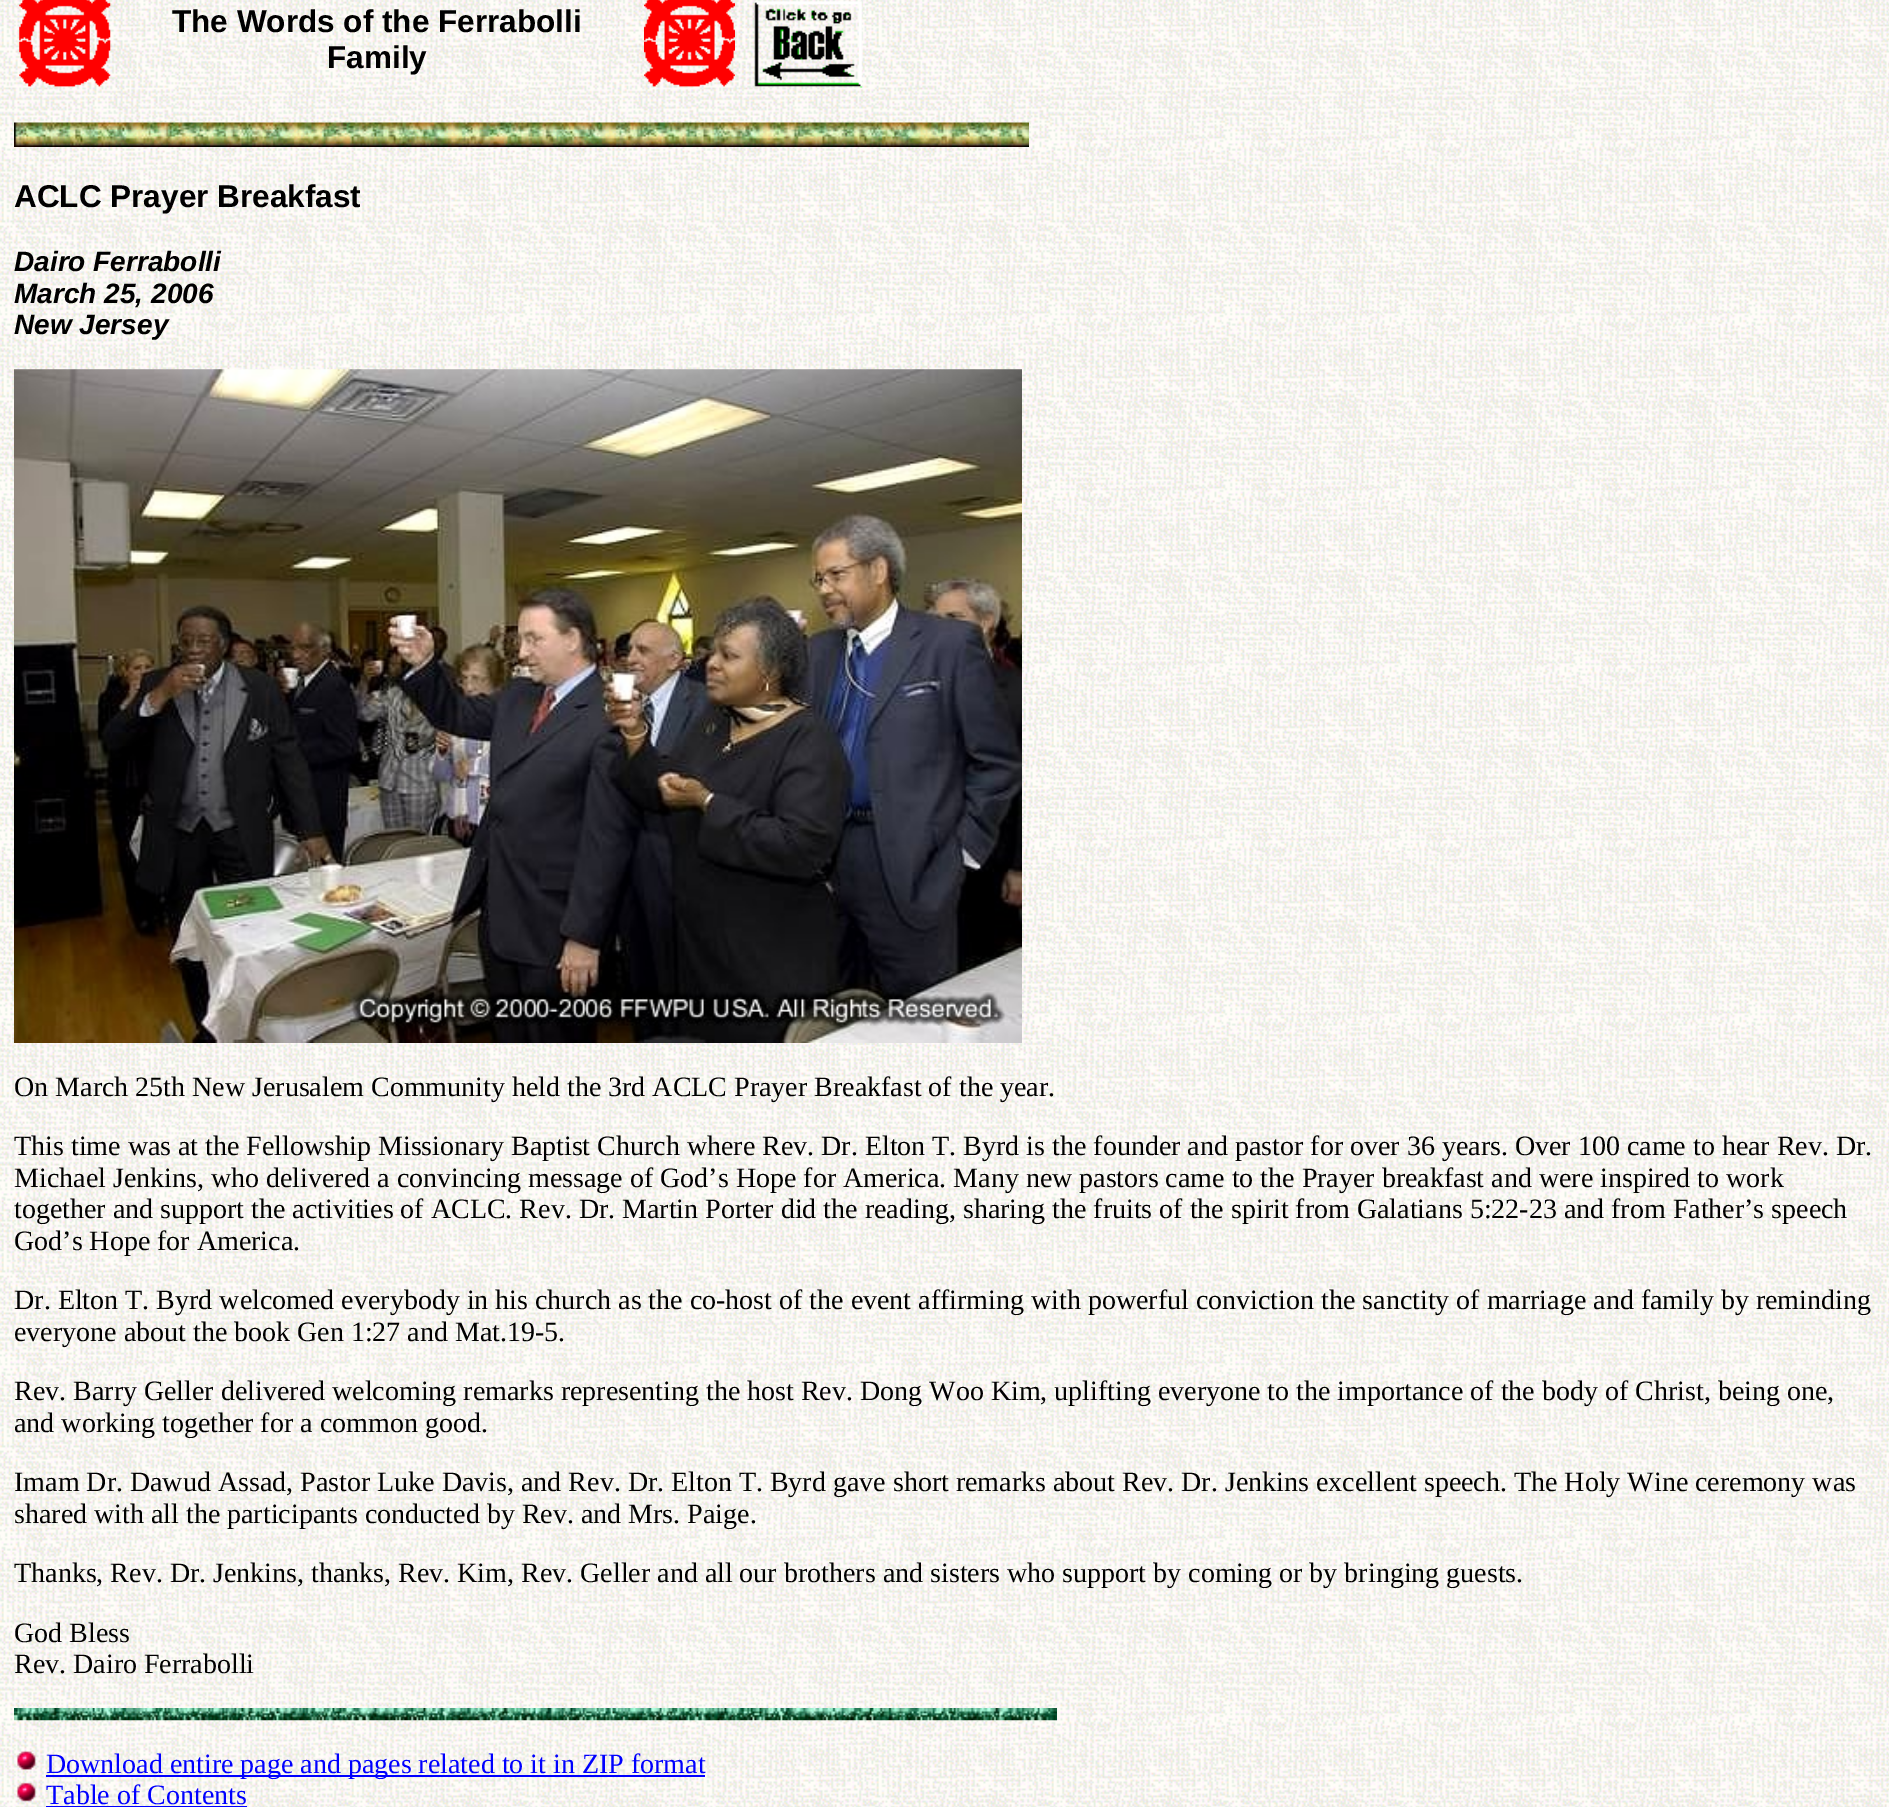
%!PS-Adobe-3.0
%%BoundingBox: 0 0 1889 1807
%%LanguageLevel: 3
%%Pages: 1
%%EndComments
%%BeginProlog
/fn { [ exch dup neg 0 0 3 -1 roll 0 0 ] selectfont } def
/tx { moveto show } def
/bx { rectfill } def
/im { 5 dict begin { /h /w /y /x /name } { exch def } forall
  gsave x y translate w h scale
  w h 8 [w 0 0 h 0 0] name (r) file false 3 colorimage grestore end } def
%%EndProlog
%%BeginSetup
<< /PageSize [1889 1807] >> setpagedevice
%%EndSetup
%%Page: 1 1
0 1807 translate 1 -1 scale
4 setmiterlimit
1 setgray
0 0 1889 1807 bx
(image0.raw) 0 0 1889 1807 im
(image1.raw) 19 0 92 87 im
/LiberationSans-Bold 31.5 fn
0 setgray
(The Words of the Ferrabolli) 172 32 tx
(Family) 327 68 tx
(image2.raw) 644 0 91 87 im
(image3.raw) 754 1 109 87 im
(image4.raw) 14 122 1015 25 im
(ACLC Prayer Breakfast) 14 207 tx
/LiberationSans-BoldItalic 28 fn
(Dairo Ferrabolli) 14 271 tx
(March 25, 2006) 14 303 tx
(New Jersey) 14 334 tx
(image5.raw) 14 369 1008 674 im
/LiberationSerif-Regular 28 fn
(On March 25th New Jerusalem Community held the 3rd ACLC Prayer Breakfast of the year.) 14 1096 tx
(This time was at the Fellowship Missionary Baptist Church where Rev. Dr. Elton T. Byrd is the founder and pastor for over 36 years. Over 100 came to hear Rev. Dr.) 14 1155 tx
(Michael Jenkins, who delivered a convincing message of God’s Hope for America. Many new pastors came to the Prayer breakfast and were inspired to work) 14 1187 tx
(together and support the activities of ACLC. Rev. Dr. Martin Porter did the reading, sharing the fruits of the spirit from Galatians 5:22-23 and from Father’s speech) 14 1218 tx
(God’s Hope for America.) 14 1250 tx
(Dr. Elton T. Byrd welcomed everybody in his church as the co-host of the event affirming with powerful conviction the sanctity of marriage and family by reminding) 14 1309 tx
(everyone about the book Gen 1:27 and Mat.19-5.) 14 1341 tx
(Rev. Barry Geller delivered welcoming remarks representing the host Rev. Dong Woo Kim, uplifting everyone to the importance of the body of Christ, being one,) 14 1400 tx
(and working together for a common good.) 14 1432 tx
(Imam Dr. Dawud Assad, Pastor Luke Davis, and Rev. Dr. Elton T. Byrd gave short remarks about Rev. Dr. Jenkins excellent speech. The Holy Wine ceremony was) 14 1491 tx
(shared with all the participants conducted by Rev. and Mrs. Paige.) 14 1523 tx
(Thanks, Rev. Dr. Jenkins, thanks, Rev. Kim, Rev. Geller and all our brothers and sisters who support by coming or by bringing guests.) 14 1582 tx
(God Bless) 14 1642 tx
(Rev. Dairo Ferrabolli) 14 1673 tx
(image6.raw) 14 1708 1043 13 im
(image7.raw) 17 1751 19 19 im
0 0 1 setrgbcolor
46 1775 659 2 bx
(Download entire page and pages related to it in ZIP format) 46 1773 tx
(image8.raw) 17 1782 19 20 im
(Table of Contents) 46 1804 tx
46 1806 201 1 bx
showpage
%%EOF
